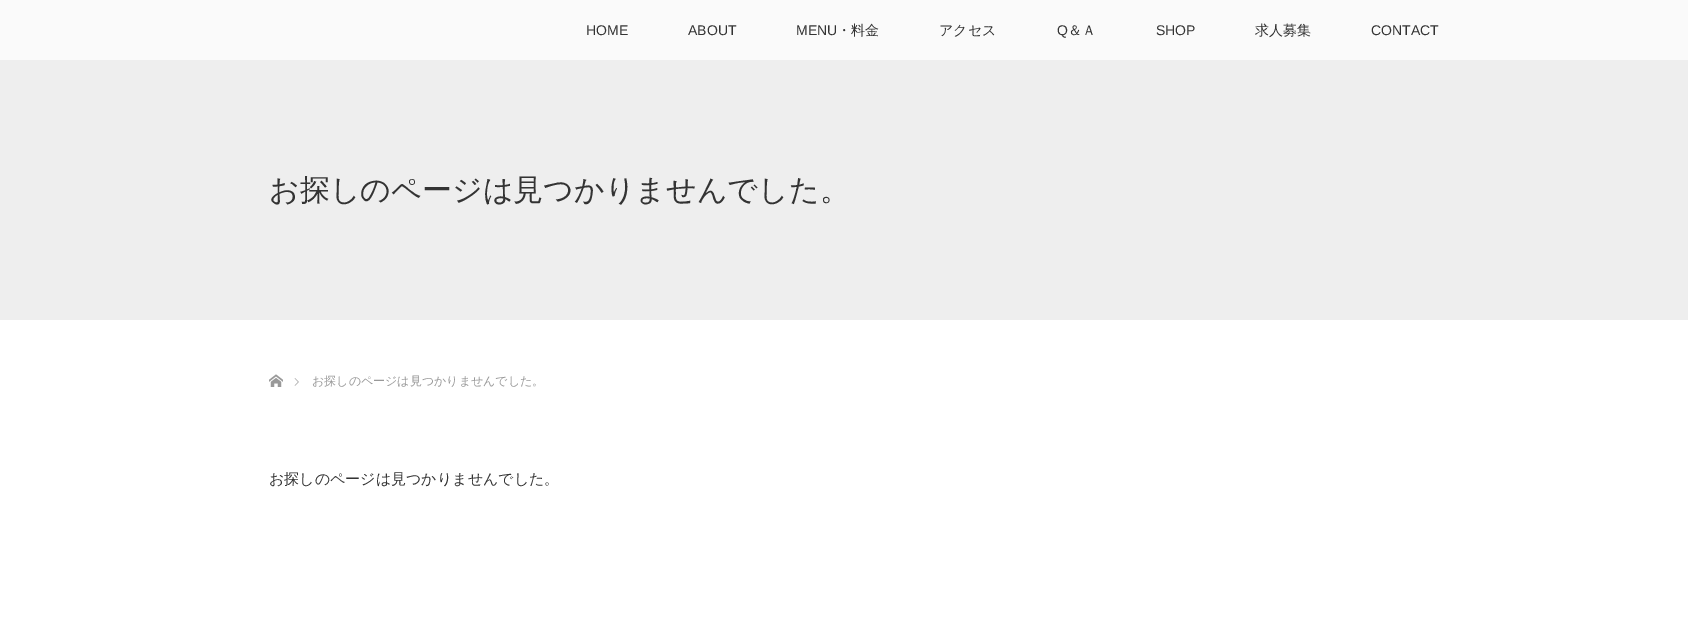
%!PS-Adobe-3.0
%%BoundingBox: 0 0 1688 634
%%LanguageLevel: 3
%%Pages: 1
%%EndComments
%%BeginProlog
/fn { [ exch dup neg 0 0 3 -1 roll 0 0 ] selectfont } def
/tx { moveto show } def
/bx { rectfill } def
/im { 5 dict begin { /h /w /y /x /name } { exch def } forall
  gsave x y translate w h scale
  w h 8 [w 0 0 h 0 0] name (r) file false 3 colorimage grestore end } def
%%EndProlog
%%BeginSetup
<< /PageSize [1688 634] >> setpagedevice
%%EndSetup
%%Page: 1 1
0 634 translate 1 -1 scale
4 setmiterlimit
1 setgray
0 0 1688 634 bx
0.98 setgray
0 0 1688 60 bx
/LiberationSans-Regular 14 fn
0.2 setgray
(HOME) 586 35 tx
(ABOUT) 688 35 tx
(MENU) 796 35 tx
/WenQuanYiZenHei-Medium 14 fn
(・料金) 837 35 tx
(アクセス) 939 35 tx
/LiberationSans-Regular 14 fn
(Q) 1057 35 tx
/WenQuanYiZenHei-Medium 14 fn
(＆Ａ) 1068 35 tx
/LiberationSans-Regular 14 fn
(SHOP) 1156 35 tx
/WenQuanYiZenHei-Medium 14 fn
(求人募集) 1255 35 tx
/LiberationSans-Regular 14 fn
(CONTACT) 1371 35 tx
0.933 setgray
0 60 1688 260 bx
/WenQuanYiZenHei-Medium 30 fn
0.2 setgray
(お探しのページは見つかりませんでした。) 269 200 tx
(image0.raw) 269 374 14 13 im
(image1.raw) 294 378 5 8 im
/WenQuanYiZenHei-Medium 12 fn
0.6 setgray
(お探しのページは見つかりませんでした。) 312 385 tx
/WenQuanYiZenHei-Medium 15 fn
0.2 setgray
(お探しのページは見つかりませんでした。) 269 484 tx
showpage
%%EOF
